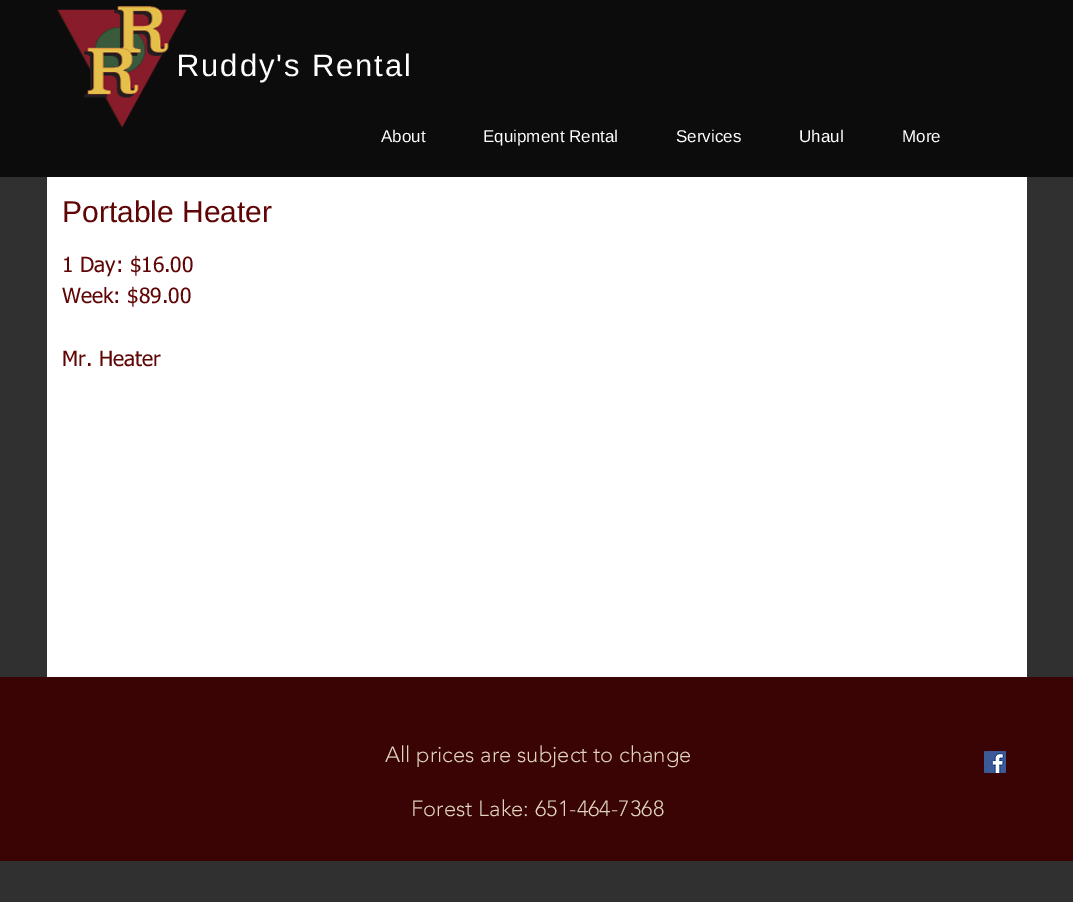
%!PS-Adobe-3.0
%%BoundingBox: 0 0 1073 902
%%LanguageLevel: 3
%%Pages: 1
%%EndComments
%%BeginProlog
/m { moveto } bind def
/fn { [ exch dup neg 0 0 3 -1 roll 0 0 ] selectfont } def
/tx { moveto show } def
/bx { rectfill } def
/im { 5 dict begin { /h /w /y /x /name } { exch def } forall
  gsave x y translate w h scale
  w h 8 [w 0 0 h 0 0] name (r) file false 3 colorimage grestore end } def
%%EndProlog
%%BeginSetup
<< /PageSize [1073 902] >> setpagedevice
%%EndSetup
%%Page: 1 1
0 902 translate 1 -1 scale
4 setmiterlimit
0.188 setgray
0 0 1073 902 bx
0.047 setgray
0 0 1073 177 bx
/LiberationSans-Regular 31 fn
1 setgray
177 76 m 1.9 0 (Ruddy's Rental) ashow
(image0.raw) 57 6 130 122 im
/LiberationSans-Regular 17 fn
(About) 381 142 tx
(Equipment Rental) 483 142 tx
(Services) 676 142 tx
(Uhaul) 799 142 tx
(More) 902 142 tx
47 177 980 500 bx
/LiberationSans-Regular 30 fn
0.376 0.02 0.02 setrgbcolor
(Portable Heater) 62 222 tx
/tahoma-Regular 21 fn
(1 Day: $16.00) 62 272 tx
(Week: $89.00) 62 303 tx
(Mr. Heater) 62 366 tx
0.227 0.016 0.016 setrgbcolor
0 677 1073 184 bx
/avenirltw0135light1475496-Light 22 fn
0.878 0.831 0.745 setrgbcolor
(All prices are subject to change) 385 762 tx
(Forest Lake: 651-464-7368) 411 816 tx
(image1.raw) 984 751 22 22 im
showpage
%%EOF
